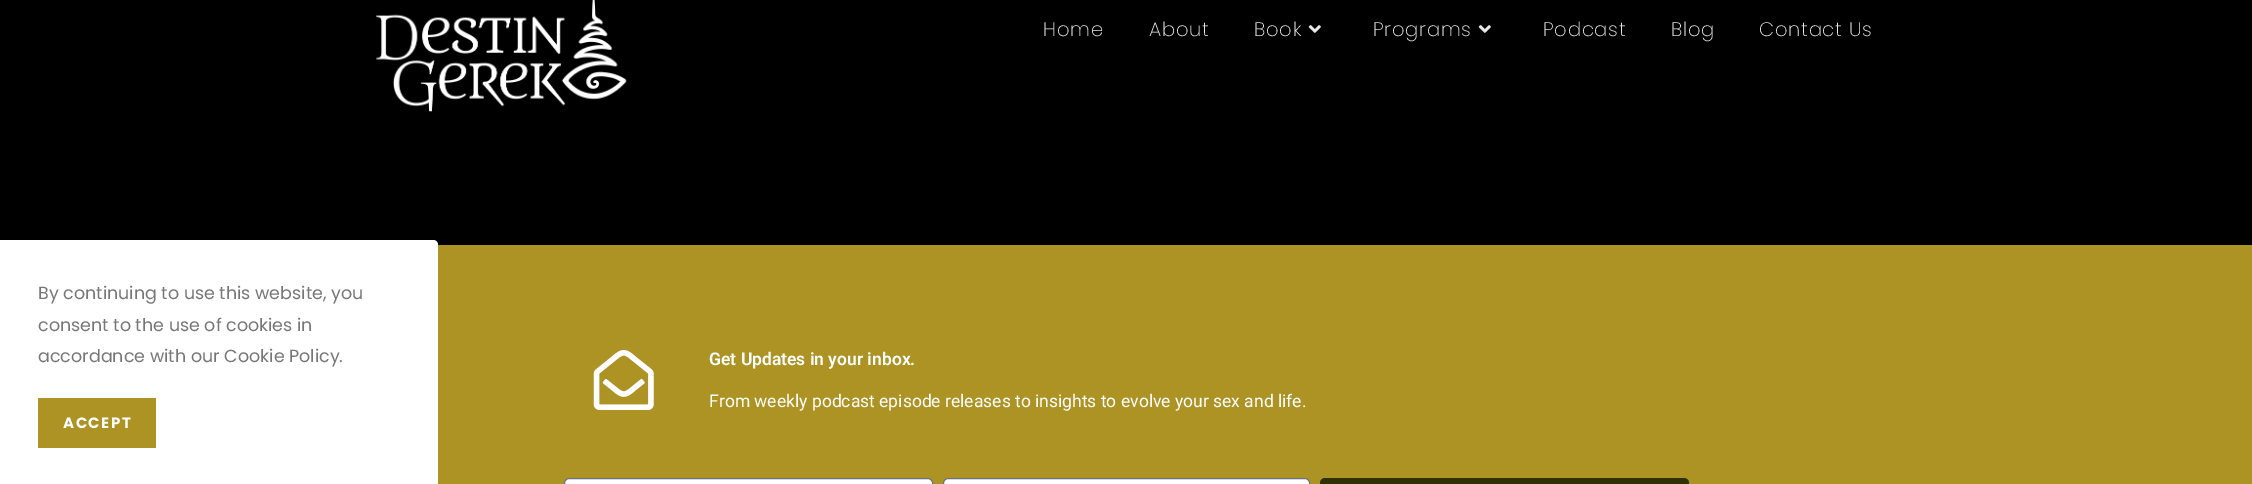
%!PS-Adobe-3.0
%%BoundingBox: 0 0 2252 484
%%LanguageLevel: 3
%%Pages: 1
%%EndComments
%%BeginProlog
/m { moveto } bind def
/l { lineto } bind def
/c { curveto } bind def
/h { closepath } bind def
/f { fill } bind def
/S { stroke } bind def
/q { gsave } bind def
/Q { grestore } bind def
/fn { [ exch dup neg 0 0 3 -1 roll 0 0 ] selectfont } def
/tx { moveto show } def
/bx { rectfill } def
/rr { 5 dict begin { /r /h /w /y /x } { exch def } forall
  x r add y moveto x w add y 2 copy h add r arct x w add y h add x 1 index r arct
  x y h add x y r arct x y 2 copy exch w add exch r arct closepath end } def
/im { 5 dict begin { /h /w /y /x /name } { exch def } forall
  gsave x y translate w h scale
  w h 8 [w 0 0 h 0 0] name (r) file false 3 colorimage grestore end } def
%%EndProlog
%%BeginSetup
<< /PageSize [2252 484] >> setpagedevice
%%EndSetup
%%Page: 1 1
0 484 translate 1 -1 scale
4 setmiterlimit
0 setgray
0 0 2252 484 bx
1 setgray
0 240 m 433 240 l 436 240 438 242 438 245 c 438 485 l 0 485 l h f
/Poppins-Regular 17.5 fn
0.467 setgray
(By continuing to use this website, you) 38 299 tx
(consent to the use of cookies in) 38 331 tx
(accordance with our Cookie Policy.) 38 362 tx
0.678 0.573 0.141 setrgbcolor
38 398 118 50 bx
/Poppins-Bold 15 fn
1 setgray
63 428 m 1.5 0 (ACCEPT) ashow
(image0.raw) 376 0 251 112 im
/Poppins-ExtraLight 19.5 fn
0.91 setgray
1043 36 m 0.75 0 (Home) ashow
1149 36 m 0.75 0 (About) ashow
1254 36 m 0.75 0 (Book) ashow
(image1.raw) 1308 25 13 8 im
1373 36 m 0.75 0 (Programs) ashow
(image1.raw) 1478 25 13 8 im
1543 36 m 0.75 0 (Podcast) ashow
1671 36 m 0.75 0 (Blog) ashow
1759 36 m 0.75 0 (Contact Us) ashow
0.678 0.573 0.141 setrgbcolor
438 245 1814 239 bx
(image2.raw) 593 350 61 60 im
/Roboto-SemiBold 17.5 fn
1 setgray
(Get Updates in your inbox.) 709 365 tx
/Roboto-Regular 17.5 fn
(From weekly podcast episode releases to insights to evolve your sex and life.) 709 407 tx
564.5 478.5 368 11 4.5 rr q f Q
0.412 0.447 0.49 setrgbcolor
S
1 setgray
943.5 478.5 366 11 4.5 rr q f Q
0.412 0.447 0.49 setrgbcolor
S
0.184 0.192 0.02 setrgbcolor
1320 478 369 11 5 rr f
showpage
%%EOF
